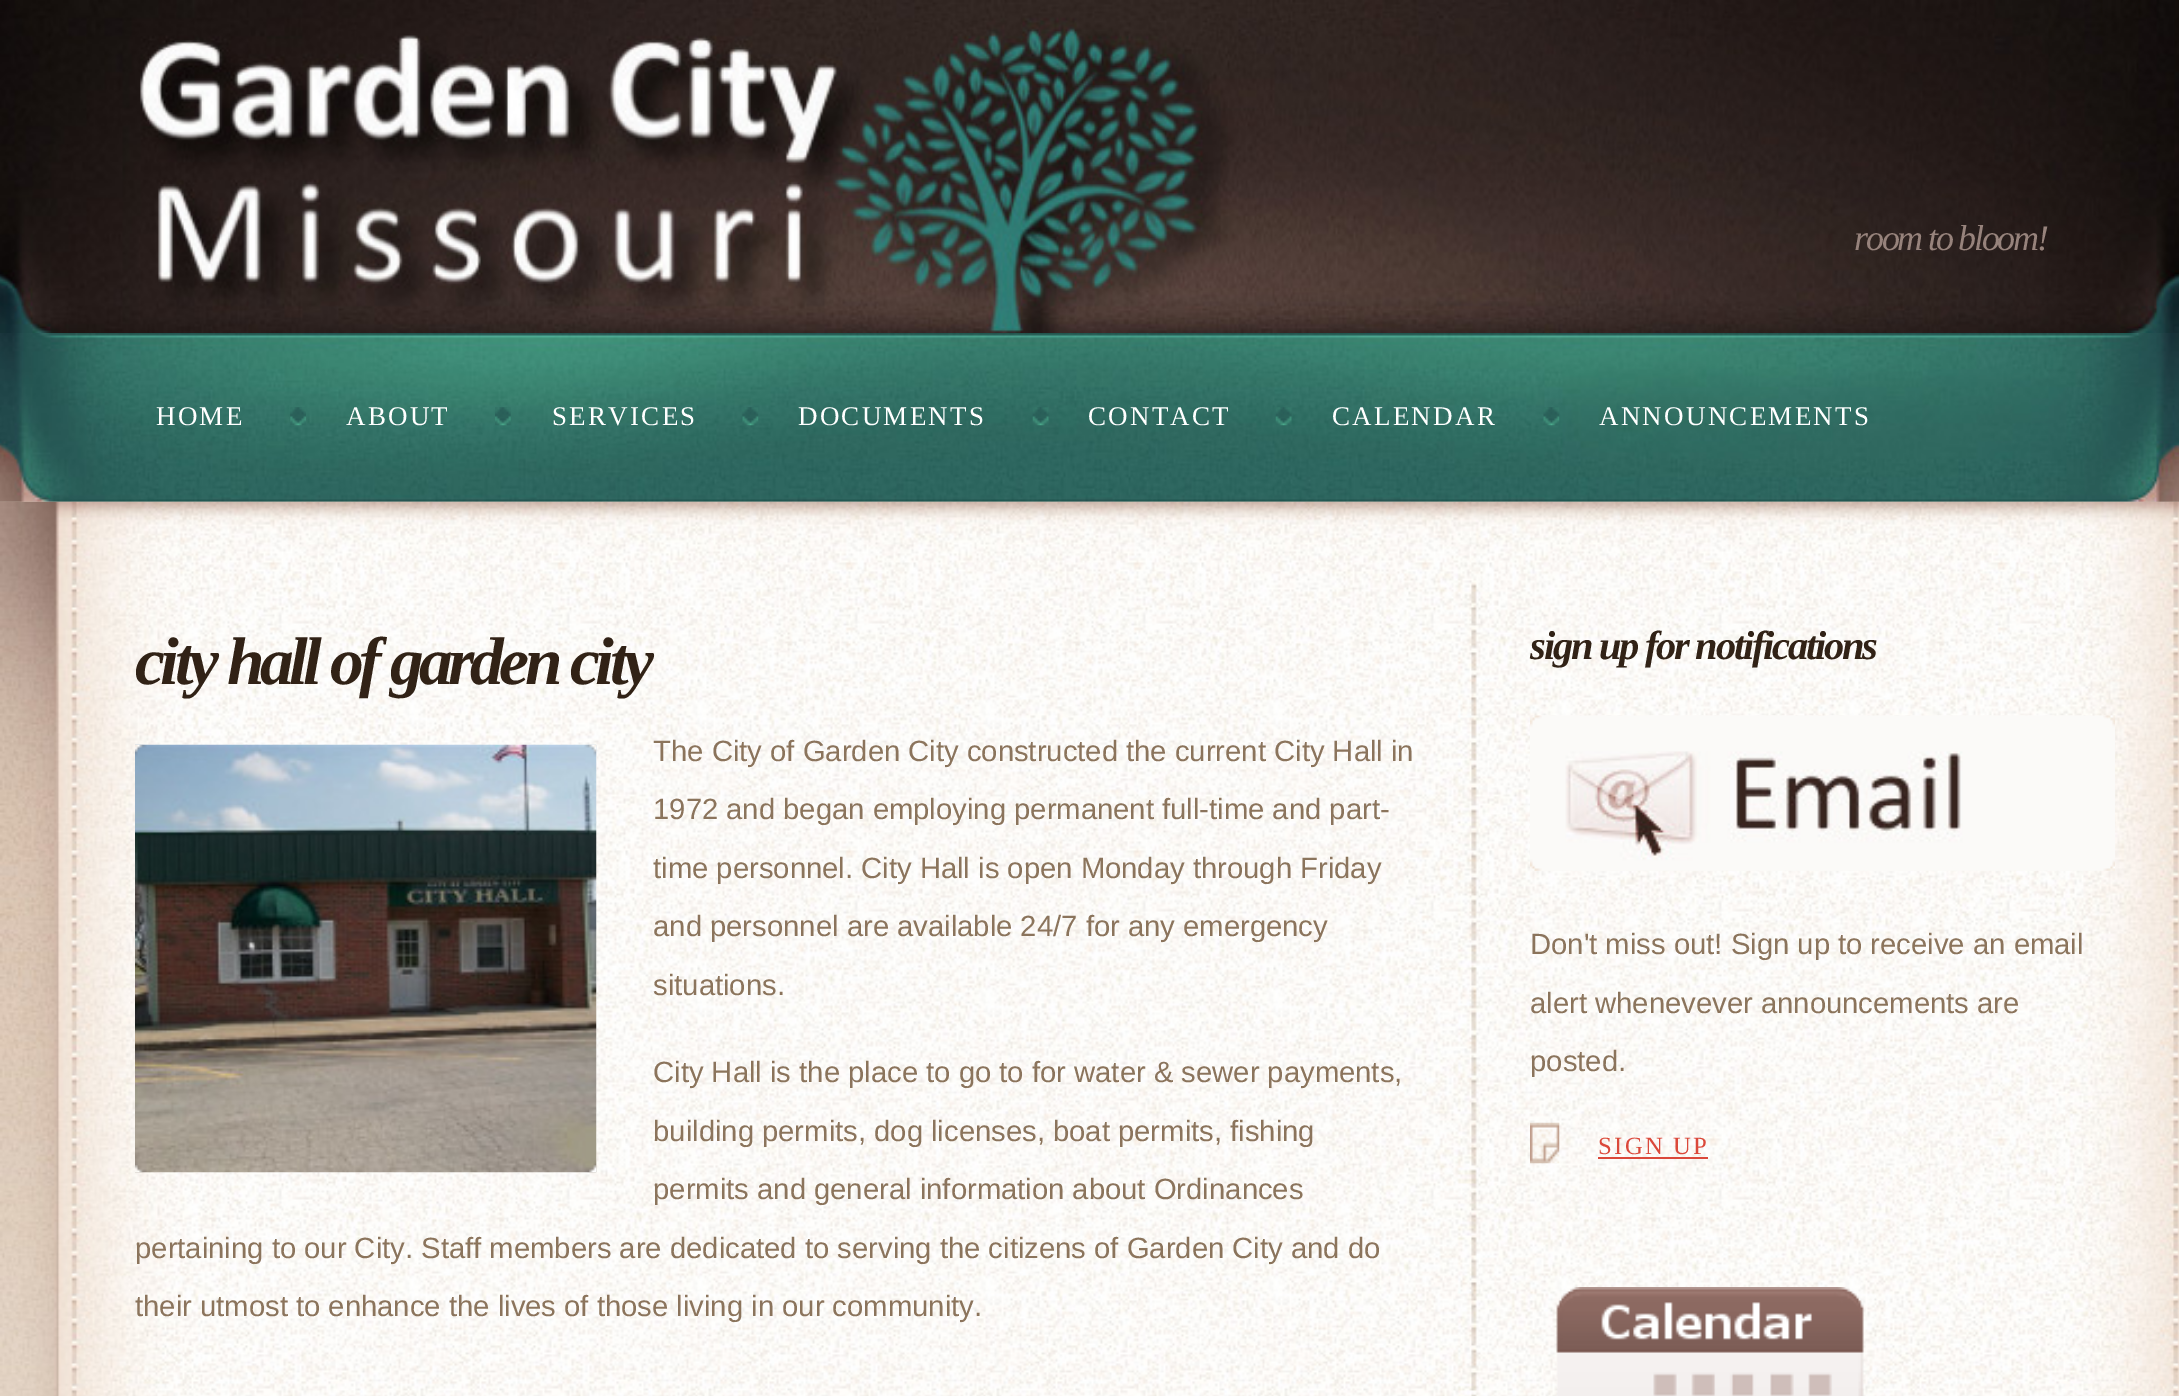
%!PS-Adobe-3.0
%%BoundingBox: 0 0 2179 1396
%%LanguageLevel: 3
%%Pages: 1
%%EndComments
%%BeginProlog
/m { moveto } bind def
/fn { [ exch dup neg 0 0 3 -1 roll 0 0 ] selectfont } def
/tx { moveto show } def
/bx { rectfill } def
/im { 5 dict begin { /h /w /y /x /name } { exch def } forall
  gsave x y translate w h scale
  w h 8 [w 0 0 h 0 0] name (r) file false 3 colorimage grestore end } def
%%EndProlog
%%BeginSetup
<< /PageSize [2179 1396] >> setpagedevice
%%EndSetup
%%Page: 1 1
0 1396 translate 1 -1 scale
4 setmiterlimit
1 setgray
0 0 2179 1396 bx
(image0.raw) 0 501 2179 1 im
(image1.raw) 0 0 2179 333 im
/LiberationSerif-Italic 36 fn
0.592 0.514 0.486 setrgbcolor
1854 250 m -2.25 0 (room to bloom!) ashow
(image9.raw) 0 501 2179 1 im
(image10.raw) 0 501 2179 1 im
(image2.raw) 0 333 2179 169 im
/LiberationSerif-Regular 27 fn
1 setgray
156 425 m 2.25 0 (HOME) ashow
(image3.raw) 290 407 16 19 im
346 425 m 2.25 0 (ABOUT) ashow
(image4.raw) 495 407 16 19 im
552 425 m 2.25 0 (SERVICES) ashow
(image5.raw) 742 407 17 19 im
798 425 m 2.25 0 (DOCUMENTS) ashow
(image6.raw) 1032 407 17 19 im
1088 425 m 2.25 0 (CONTACT) ashow
(image7.raw) 1275 407 17 19 im
1332 425 m 2.25 0 (CALENDAR) ashow
(image8.raw) 1543 407 17 19 im
1599 425 m 2.25 0 (ANNOUNCEMENTS) ashow
(image11.raw) 0 501 2179 1 im
(image12.raw) 0 501 2179 1 im
(image13.raw) 0 501 2179 1 im
(image14.raw) 0 501 2179 895 im
/LiberationSerif-BoldItalic 67.5 fn
0.192 0.133 0.086 setrgbcolor
135 684 m -4.5 0 (city hall of garden city) ashow
(image15.raw) 135 744 462 429 im
(image16.raw) 135 744 462 429 im
/LiberationSans-Regular 29.25 fn
0.545 0.455 0.361 setrgbcolor
(The City of Garden City constructed the current City Hall in) 653 761 tx
(1972 and began employing permanent full-time and part-) 653 819 tx
(time personnel. City Hall is open Monday through Friday) 653 878 tx
(and personnel are available 24/7 for any emergency) 653 936 tx
(situations.) 653 995 tx
(City Hall is the place to go to for water & sewer payments,) 653 1082 tx
(building permits, dog licenses, boat permits, fishing) 653 1141 tx
(permits and general information about Ordinances) 653 1199 tx
(pertaining to our City. Staff members are dedicated to serving the citizens of Garden City and do) 135 1258 tx
(their utmost to enhance the lives of those living in our community.) 135 1316 tx
/LiberationSerif-BoldItalic 40.5 fn
0.192 0.133 0.086 setrgbcolor
1530 659 m -2.25 0 (sign up for notifications) ashow
(image17.raw) 1530 715 585 156 im
(image18.raw) 1530 715 585 156 im
/LiberationSans-Regular 29.25 fn
0.545 0.455 0.361 setrgbcolor
(Don't miss out! Sign up to receive an email) 1530 954 tx
(alert whenevever announcements are) 1530 1013 tx
(posted.) 1530 1071 tx
(image19.raw) 1530 1122 30 42 im
/LiberationSerif-Regular 24.75 fn
0.859 0.282 0.227 setrgbcolor
1598 1154 m 2.25 0 (SIGN UP) ashow
1598 1157 110 2 bx
(image20.raw) 1556 1287 308 109 im
showpage
%%EOF
